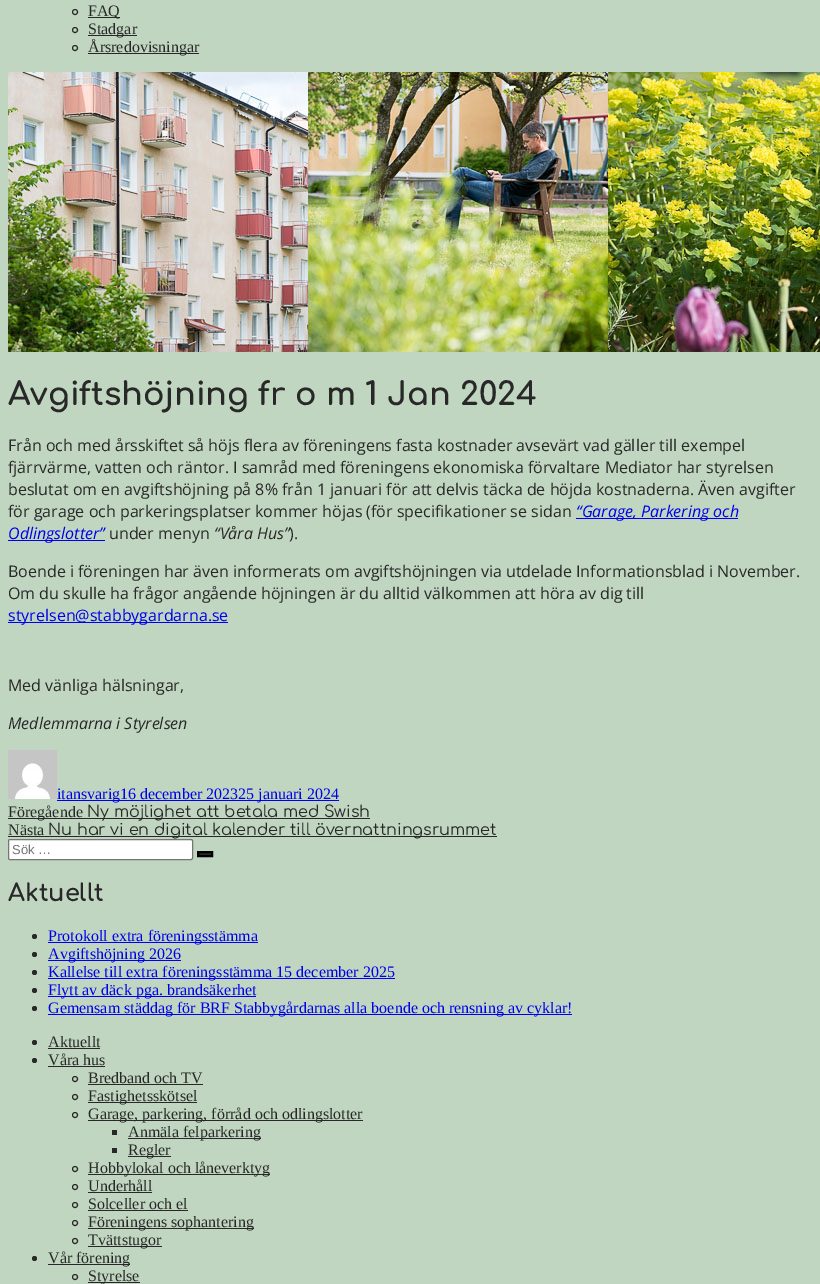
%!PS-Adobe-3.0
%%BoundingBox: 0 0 820 1284
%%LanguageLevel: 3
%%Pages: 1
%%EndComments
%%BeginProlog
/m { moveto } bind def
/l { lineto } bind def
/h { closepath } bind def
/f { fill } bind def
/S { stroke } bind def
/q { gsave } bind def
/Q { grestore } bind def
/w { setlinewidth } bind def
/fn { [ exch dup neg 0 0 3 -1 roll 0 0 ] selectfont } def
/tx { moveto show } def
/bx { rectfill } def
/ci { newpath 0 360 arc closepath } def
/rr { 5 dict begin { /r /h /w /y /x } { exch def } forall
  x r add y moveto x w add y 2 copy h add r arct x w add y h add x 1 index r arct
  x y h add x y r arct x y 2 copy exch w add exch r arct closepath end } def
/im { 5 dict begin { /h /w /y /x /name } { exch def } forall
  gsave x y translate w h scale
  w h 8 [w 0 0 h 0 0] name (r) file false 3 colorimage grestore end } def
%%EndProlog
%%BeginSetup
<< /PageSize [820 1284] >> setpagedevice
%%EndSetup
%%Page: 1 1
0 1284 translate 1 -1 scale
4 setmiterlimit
0.753 0.839 0.753 setrgbcolor
0 0 820 1284 bx
0.157 setgray
75 12 2.5 ci S
88 17 32 1 bx
/LiberationSerif-Regular 16 fn
(FAQ) 88 16 tx
75 30 2.5 ci S
88 35 49 1 bx
(Stadgar) 88 34 tx
75 48 2.5 ci S
88 53 111 1 bx
(Årsredovisningar) 88 52 tx
(image0.raw) 8 72 812 280 im
/Comfortaa-Bold 32 fn
(Avgiftshöjning fr o m 1 Jan 2024) 8 405 tx
/OpenSans-Regular 16 fn
(Från och med årsskiftet så höjs flera av föreningens fasta kostnader avsevärt vad gäller till exempel) 8 451 tx
(fjärrvärme, vatten och räntor. I samråd med föreningens ekonomiska förvaltare Mediator har styrelsen) 8 473 tx
(beslutat om en avgiftshöjning på 8% från 1 januari för att delvis täcka de höjda kostnaderna. Även avgifter) 8 495 tx
(för garage och parkeringsplatser kommer höjas \(för specifikationer se sidan) 8 517 tx
0 0 0.933 setrgbcolor
576 518 162 1 bx
/OpenSans-Italic 16 fn
(“Garage, Parkering och) 576 517 tx
8 540 97 1 bx
(Odlingslotter”) 8 539 tx
/OpenSans-Regular 16 fn
0.157 setgray
(under menyn) 109 539 tx
/OpenSans-Italic 16 fn
(“Våra Hus”) 214 539 tx
/OpenSans-Regular 16 fn
(\).) 289 539 tx
(Boende i föreningen har även informerats om avgiftshöjningen via utdelade Informationsblad i November.) 8 577 tx
(Om du skulle ha frågor angående höjningen är du alltid välkommen att höra av dig till) 8 599 tx
0 0 0.933 setrgbcolor
8 622 220 1 bx
(styrelsen@stabbygardarna.se) 8 621 tx
0.157 setgray
(Med vänliga hälsningar,) 8 691 tx
/OpenSans-Italic 16 fn
(Medlemmarna i Styrelsen) 8 729 tx
(image1.raw) 8 750 49 49 im
0 0 0.933 setrgbcolor
57 800 282 1 bx
/LiberationSerif-Regular 16 fn
(itansvarig16 december 202325 januari 2024) 57 799 tx
0.157 setgray
8 818 362 1 bx
(Föregående) 8 817 tx
/Comfortaa-Regular 16 fn
(Ny möjlighet att betala med Swish) 87 817 tx
/LiberationSerif-Regular 16 fn
(Nästa) 8 835 tx
8 836 489 1 bx
/Comfortaa-Regular 16 fn
(Nu har vi en digital kalender till övernattningsrummet) 48 835 tx
1 setgray
8.5 839.5 184 20 1.5 rr q f Q
0.463 setgray
S
/LiberationSans-Regular 13 fn
0.459 setgray
(Sök …) 12 854 tx
0.157 setgray
198 852 m 212 852 l 212 856 l 198 856 l h q f Q
0 setgray
2 w
S
/Comfortaa-Bold 24 fn
0.157 setgray
(Aktuellt) 8 901 tx
34.5 936.5 2.5 ci f
0 0 0.933 setrgbcolor
48 942 210 1 bx
/LiberationSerif-Regular 16 fn
(Protokoll extra föreningsstämma) 48 941 tx
0.157 setgray
34.5 954.5 2.5 ci f
0 0 0.933 setrgbcolor
48 960 133 1 bx
(Avgiftshöjning 2026) 48 959 tx
0.157 setgray
34.5 972.5 2.5 ci f
0 0 0.933 setrgbcolor
48 978 347 1 bx
(Kallelse till extra föreningsstämma 15 december 2025) 48 977 tx
0.157 setgray
34.5 990.5 2.5 ci f
0 0 0.933 setrgbcolor
48 996 208 1 bx
(Flytt av däck pga. brandsäkerhet) 48 995 tx
0.157 setgray
34.5 1008.5 2.5 ci f
0 0 0.933 setrgbcolor
48 1014 524 1 bx
(Gemensam städdag för BRF Stabbygårdarnas alla boende och rensning av cyklar!) 48 1013 tx
0.157 setgray
34.5 1042.5 2.5 ci f
(Aktuellt) 48 1047 tx
48 1048 52 1 bx
34.5 1060.5 2.5 ci f
(Våra hus) 48 1065 tx
48 1066 57 1 bx
1 w
75 1079 2.5 ci S
(Bredband och TV) 88 1083 tx
88 1084 115 1 bx
75 1097 2.5 ci S
88 1102 109 1 bx
(Fastighetsskötsel) 88 1101 tx
75 1115 2.5 ci S
88 1120 275 1 bx
(Garage, parkering, förråd och odlingslotter) 88 1119 tx
112 1130 5 5 bx
128 1138 133 1 bx
(Anmäla felparkering) 128 1137 tx
112 1148 5 5 bx
128 1156 43 1 bx
(Regler) 128 1155 tx
75 1169 2.5 ci S
88 1174 182 1 bx
(Hobbylokal och låneverktyg) 88 1173 tx
75 1187 2.5 ci S
(Underhåll) 88 1191 tx
88 1192 64 1 bx
75 1205 2.5 ci S
(Solceller och el) 88 1209 tx
88 1210 100 1 bx
75 1223 2.5 ci S
88 1228 166 1 bx
(Föreningens sophantering) 88 1227 tx
75 1241 2.5 ci S
88 1246 74 1 bx
(Tvättstugor) 88 1245 tx
34.5 1258.5 2.5 ci f
48 1264 82 1 bx
(Vår förening) 48 1263 tx
75 1277 2.5 ci S
88 1282 52 1 bx
(Styrelse) 88 1281 tx
showpage
%%EOF
